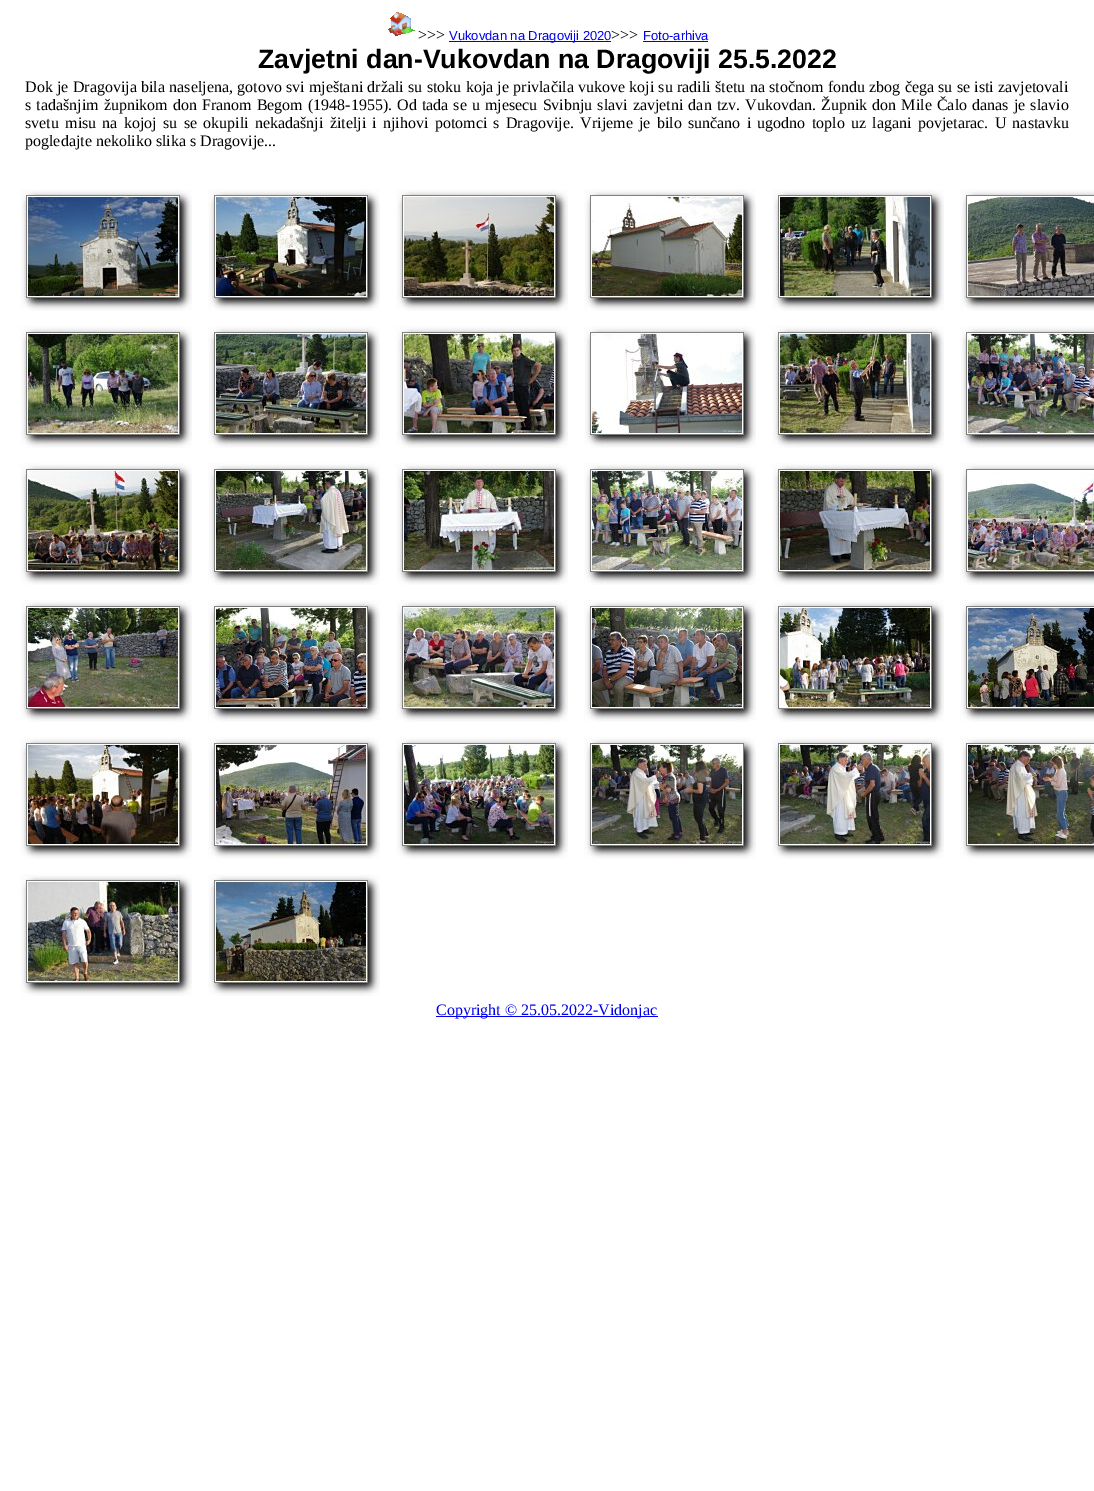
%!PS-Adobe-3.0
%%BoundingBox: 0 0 1094 1491
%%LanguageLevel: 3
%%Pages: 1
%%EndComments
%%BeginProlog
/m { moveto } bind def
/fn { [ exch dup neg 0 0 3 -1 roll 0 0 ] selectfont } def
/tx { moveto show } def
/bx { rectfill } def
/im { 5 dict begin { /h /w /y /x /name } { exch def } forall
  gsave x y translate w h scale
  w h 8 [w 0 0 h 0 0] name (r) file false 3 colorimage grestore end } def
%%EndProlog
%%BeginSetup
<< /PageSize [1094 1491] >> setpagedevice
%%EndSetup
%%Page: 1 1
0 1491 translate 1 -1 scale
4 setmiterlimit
1 setgray
0 0 1094 1491 bx
(image0.raw) 388 12 27 24 im
/LiberationSerif-Regular 16 fn
0 setgray
(>>>) 418 40 tx
0 0 0.933 setrgbcolor
449 41 162 1 bx
/LiberationSans-Regular 13 fn
(Vukovdan na Dragoviji 2020) 449 40 tx
/LiberationSerif-Regular 16 fn
0 setgray
(>>>) 611 40 tx
/LiberationSans-Regular 13 fn
0 0 0.933 setrgbcolor
(Foto-arhiva) 643 40 tx
643 41 65 1 bx
/LiberationSans-Bold 26.7 fn
0 setgray
(Zavjetni dan-Vukovdan na Dragoviji 25.5.2022) 258 68 tx
/LiberationSerif-Regular 16 fn
25 92 m 0.3 0 32 (Dok je Dragovija bila naseljena, gotovo svi mještani držali su stoku koja je privlačila vukove koji su radili štetu na stočnom fondu zbog čega su se isti zavjetovali) widthshow
25 110 m 1.1 0 32 (s tadašnjim župnikom don Franom Begom \(1948-1955\). Od tada se u mjesecu Svibnju slavi zavjetni dan tzv. Vukovdan. Župnik don Mile Čalo danas je slavio) widthshow
25 128 m 2.3 0 32 (svetu misu na kojoj su se okupili nekadašnji žitelji i njihovi potomci s Dragovije. Vrijeme je bilo sunčano i ugodno toplo uz lagani povjetarac. U nastavku) widthshow
(pogledajte nekoliko slika s Dragovije...) 25 146 tx
(image1.raw) 20 189 172 122 im
(image2.raw) 208 189 172 122 im
(image3.raw) 396 189 172 122 im
(image4.raw) 584 189 172 122 im
(image5.raw) 772 189 172 122 im
(image6.raw) 960 189 134 122 im
(image7.raw) 20 326 172 122 im
(image8.raw) 208 326 172 122 im
(image9.raw) 396 326 172 122 im
(image10.raw) 584 326 172 122 im
(image11.raw) 772 326 172 122 im
(image12.raw) 960 326 134 122 im
(image13.raw) 20 463 172 122 im
(image14.raw) 208 463 172 122 im
(image15.raw) 396 463 172 122 im
(image16.raw) 584 463 172 122 im
(image17.raw) 772 463 172 122 im
(image18.raw) 960 463 134 122 im
(image19.raw) 20 600 172 122 im
(image20.raw) 208 600 172 122 im
(image21.raw) 396 600 172 122 im
(image22.raw) 584 600 172 122 im
(image23.raw) 772 600 172 122 im
(image24.raw) 960 600 134 122 im
(image25.raw) 20 737 172 122 im
(image26.raw) 208 737 172 122 im
(image27.raw) 396 737 172 122 im
(image28.raw) 584 737 172 122 im
(image29.raw) 772 737 172 122 im
(image30.raw) 960 737 134 122 im
(image31.raw) 20 874 172 122 im
(image32.raw) 208 874 172 122 im
0 0 0.933 setrgbcolor
436 1016 222 1 bx
(Copyright © 25.05.2022-Vidonjac) 436 1015 tx
showpage
%%EOF
